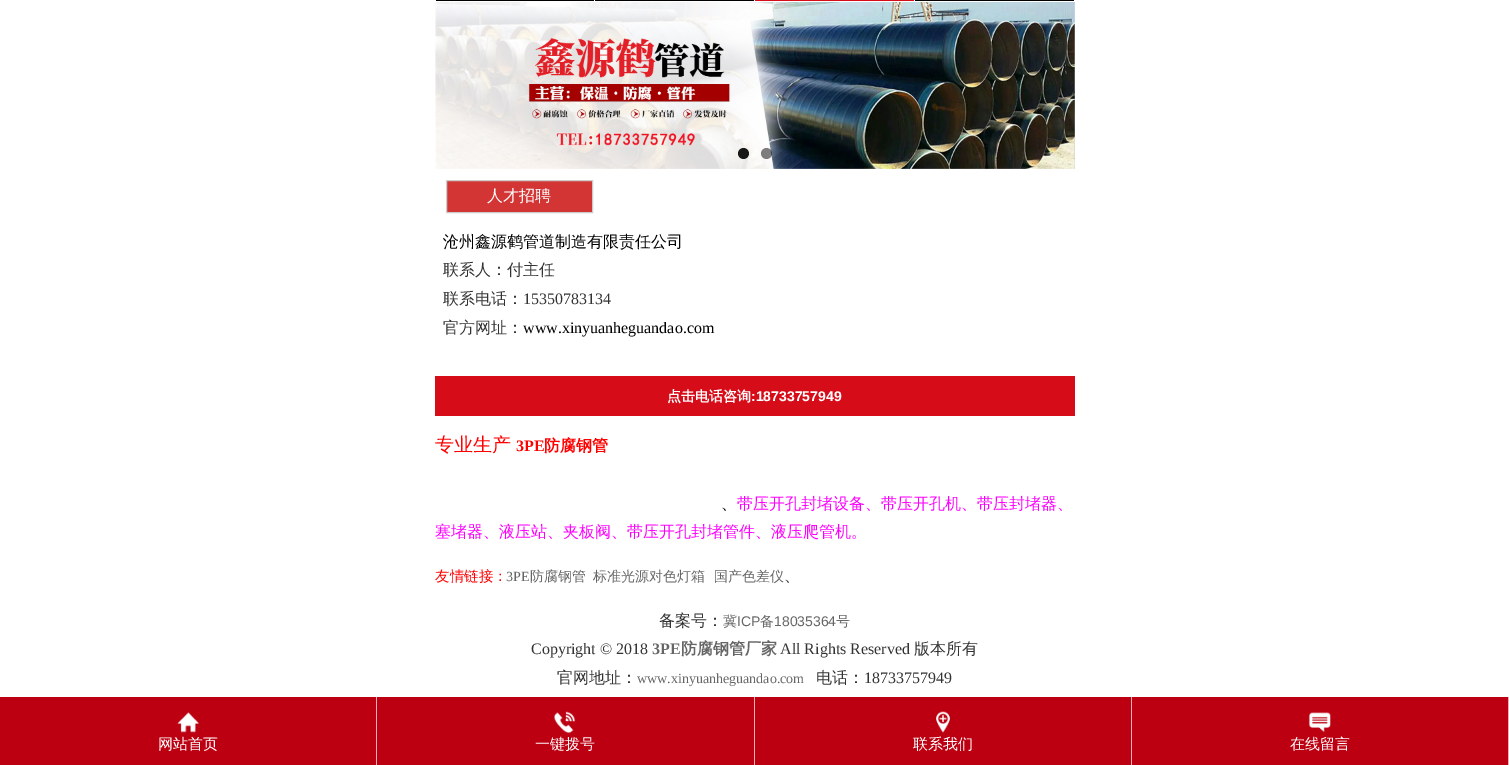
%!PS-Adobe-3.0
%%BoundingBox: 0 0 1509 765
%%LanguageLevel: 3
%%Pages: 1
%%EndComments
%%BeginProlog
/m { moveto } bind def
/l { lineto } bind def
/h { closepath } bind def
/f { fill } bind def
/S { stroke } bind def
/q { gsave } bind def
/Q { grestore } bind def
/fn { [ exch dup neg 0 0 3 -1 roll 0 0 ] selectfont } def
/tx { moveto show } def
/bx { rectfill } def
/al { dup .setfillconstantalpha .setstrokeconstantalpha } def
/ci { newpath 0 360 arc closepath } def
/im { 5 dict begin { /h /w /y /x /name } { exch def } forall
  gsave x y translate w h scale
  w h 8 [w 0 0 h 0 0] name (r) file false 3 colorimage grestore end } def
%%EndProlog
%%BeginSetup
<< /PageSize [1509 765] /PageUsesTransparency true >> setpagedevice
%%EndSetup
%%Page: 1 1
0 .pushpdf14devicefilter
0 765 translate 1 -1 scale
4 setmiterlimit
1 setgray
0 0 1509 765 bx
0 setgray
436 0 158 1 bx
595 0 159 1 bx
0.843 0.047 0.098 setrgbcolor
755 0 159 1 bx
0 setgray
915 0 159 1 bx
(image0.raw) 435 2 640 167 im
(image1.raw) 1074 6 1 163 im
0.9 al
743.5 153.5 5.5 ci f
0.5 al
766.5 153.5 5.5 ci f
1 al
0.827 0.204 0.204 setrgbcolor
446.5 180.5 m 592.5 180.5 l 592.5 212.5 l 446.5 212.5 l h q f Q
0.8 setgray
S
/WenQuanYiZenHei-Medium 16 fn
1 setgray
(人才招聘) 487 201 tx
0 setgray
(沧州鑫源鹤管道制造有限责任公司) 443 247 tx
0.2 setgray
(联系人：付主任) 443 275 tx
(联系电话：) 443 304 tx
/LiberationSerif-Regular 16 fn
(15350783134) 523 304 tx
/WenQuanYiZenHei-Medium 16 fn
(官方网址：) 443 333 tx
/LiberationSerif-Regular 16 fn
0 setgray
(www.xinyuanheguandao.com) 523 333 tx
0.843 0.047 0.098 setrgbcolor
435 376 640 40 bx
/WenQuanYiZenHei-Bold 14 fn
1 setgray
(点击电话咨询) 667 401 tx
/LiberationSans-Bold 14 fn
(:18733757949) 751 401 tx
/WenQuanYiZenHei-Medium 19 fn
1 0 0 setrgbcolor
(专业生产) 435 451 tx
/LiberationSerif-Bold 16 fn
(3PE) 516 451 tx
/WenQuanYiZenHei-Bold 16 fn
(防腐钢管) 544 451 tx
/WenQuanYiZenHei-Medium 16 fn
0 setgray
(、) 721 509 tx
1 0 1 setrgbcolor
(带压开孔封堵设备、带压开孔机、带压封堵器、) 737 509 tx
(塞堵器、液压站、夹板阀、带压开孔封堵管件、液压爬管机。) 435 537 tx
/WenQuanYiZenHei-Medium 14.5 fn
1 0 0 setrgbcolor
(友情链接：) 435 581 tx
/LiberationSerif-Regular 14 fn
0.4 setgray
(3PE) 506 581 tx
/WenQuanYiZenHei-Medium 14 fn
(防腐钢管) 530 581 tx
(标准光源对色灯箱) 593 581 tx
(国产色差仪) 714 581 tx
/WenQuanYiZenHei-Medium 16 fn
0.2 setgray
(、) 784 581 tx
(备案号：) 659 626 tx
/WenQuanYiZenHei-Medium 14 fn
0.4 setgray
(冀) 723 626 tx
/LiberationSans-Regular 14 fn
(ICP) 737 626 tx
/WenQuanYiZenHei-Medium 14 fn
(备) 760 626 tx
/LiberationSans-Regular 14 fn
(18035364) 774 626 tx
/WenQuanYiZenHei-Medium 14 fn
(号) 836 626 tx
/LiberationSerif-Regular 16 fn
0.2 setgray
(Copyright © 2018) 531 654 tx
/LiberationSerif-Bold 16 fn
0.4 setgray
(3PE) 652 654 tx
/WenQuanYiZenHei-Bold 16 fn
(防腐钢管厂家) 681 654 tx
/LiberationSerif-Regular 16 fn
0.2 setgray
(All Rights Reserved) 780 654 tx
/WenQuanYiZenHei-Medium 16 fn
(版本所有) 914 654 tx
(官网地址：) 557 683 tx
/LiberationSerif-Regular 14 fn
0.4 setgray
(www.xinyuanheguandao.com) 637 683 tx
/WenQuanYiZenHei-Medium 16 fn
0.2 setgray
(电话：) 816 683 tx
/LiberationSerif-Regular 16 fn
(18733757949) 864 683 tx
0.737 0 0.067 setrgbcolor
0 697 1508 68 bx
0.922 0.702 0.722 setrgbcolor
376 697 1 68 bx
(image2.raw) 177 712 22 21 im
/WenQuanYiZenHei-Medium 15 fn
1 setgray
(网站首页) 158 749 tx
0.922 0.702 0.722 setrgbcolor
754 697 1 68 bx
(image3.raw) 554 711 22 23 im
1 setgray
(一键拨号) 535 749 tx
0.922 0.702 0.722 setrgbcolor
1131 697 1 68 bx
(image4.raw) 936 711 14 22 im
1 setgray
(联系我们) 913 749 tx
0.922 0.702 0.722 setrgbcolor
1508 697 1 68 bx
(image5.raw) 1308 712 23 21 im
1 setgray
(在线留言) 1290 749 tx
.poppdf14devicefilter showpage
%%EOF
